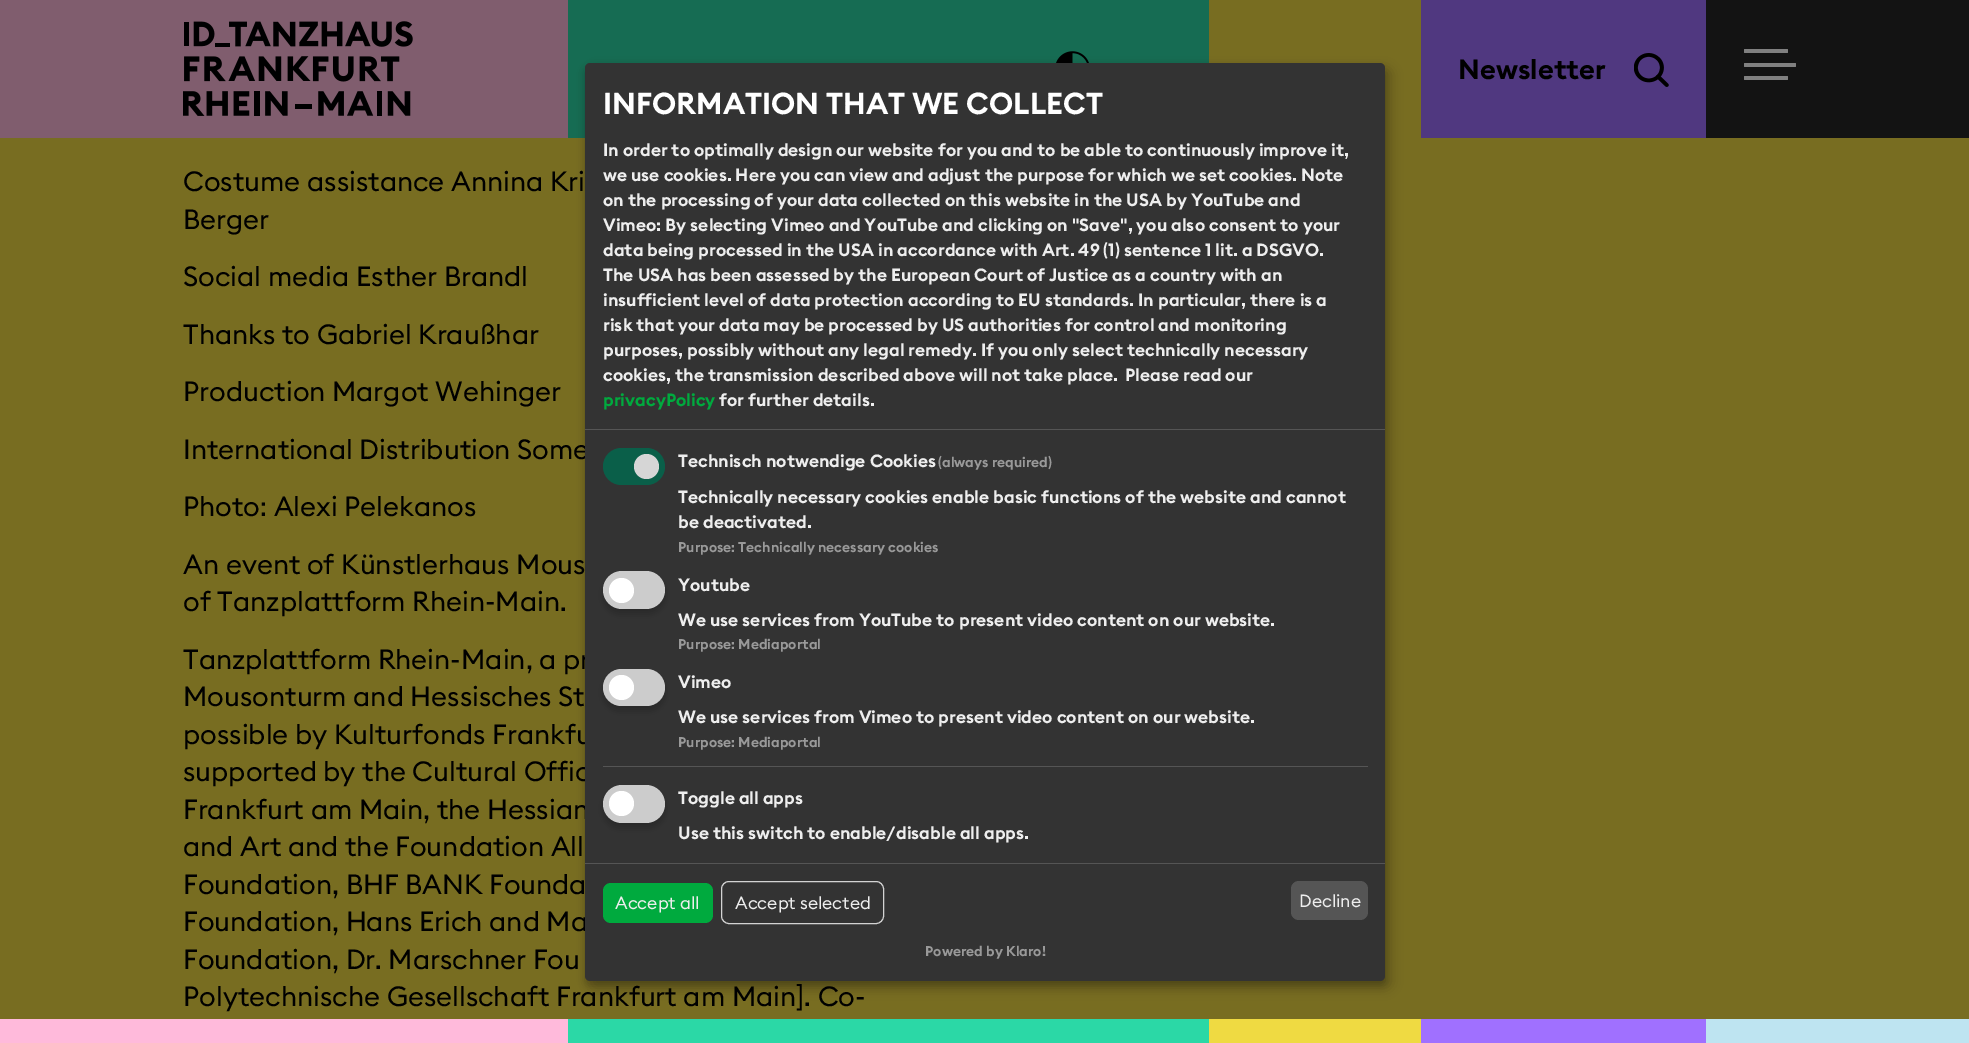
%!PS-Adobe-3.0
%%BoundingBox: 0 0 1969 1043
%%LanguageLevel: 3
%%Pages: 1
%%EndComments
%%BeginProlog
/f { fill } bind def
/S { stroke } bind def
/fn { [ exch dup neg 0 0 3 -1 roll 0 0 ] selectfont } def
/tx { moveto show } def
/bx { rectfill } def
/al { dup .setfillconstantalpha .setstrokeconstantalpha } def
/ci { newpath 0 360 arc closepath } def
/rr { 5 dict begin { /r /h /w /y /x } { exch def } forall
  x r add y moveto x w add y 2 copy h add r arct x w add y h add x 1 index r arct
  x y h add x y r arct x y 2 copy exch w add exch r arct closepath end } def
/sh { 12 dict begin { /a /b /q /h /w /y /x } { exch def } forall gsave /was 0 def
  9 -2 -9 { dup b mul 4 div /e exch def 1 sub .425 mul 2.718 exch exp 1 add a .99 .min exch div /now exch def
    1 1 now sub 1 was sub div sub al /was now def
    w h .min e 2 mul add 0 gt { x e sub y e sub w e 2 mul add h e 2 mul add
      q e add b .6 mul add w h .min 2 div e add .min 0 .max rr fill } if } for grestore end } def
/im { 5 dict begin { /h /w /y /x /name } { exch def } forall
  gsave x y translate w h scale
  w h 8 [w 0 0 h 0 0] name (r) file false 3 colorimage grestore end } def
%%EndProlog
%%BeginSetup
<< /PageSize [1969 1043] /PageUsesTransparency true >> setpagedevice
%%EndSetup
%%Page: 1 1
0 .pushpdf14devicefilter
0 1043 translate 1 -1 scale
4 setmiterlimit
0.471 0.427 0.129 setrgbcolor
0 0 1969 1043 bx
0.502 0.365 0.431 setrgbcolor
0 0 568 138 bx
(image0.raw) 183 21 230 95 im
0.086 0.424 0.325 setrgbcolor
568 0 641 138 bx
(image1.raw) 1056 51 33 12 im
0.314 0.22 0.502 setrgbcolor
1421 0 285 138 bx
/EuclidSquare-SemiBold 27.5 fn
0 setgray
(Newsletter) 1458 79 tx
(image2.raw) 1634 53 35 34 im
0.075 setgray
1706 0 263 138 bx
0.502 setgray
1744 49 44 4 1 rr f
1744 63 52 4 1 rr f
1744 76 44 4 1 rr f
/EuclidSquare-Regular 27.5 fn
0 setgray
(Costume assistance Annina Kri) 183 191 tx
(Berger) 183 229 tx
(Social media Esther Brandl) 183 286 tx
(Thanks to Gabriel Kraußhar) 183 344 tx
(Production Margot Wehinger) 183 401 tx
(International Distribution Some) 183 459 tx
(Photo: Alexi Pelekanos) 183 516 tx
(An event of Künstlerhaus Mous) 183 574 tx
(of Tanzplattform Rhein-Main.) 183 611 tx
(Tanzplattform Rhein-Main, a pr) 183 669 tx
(Mousonturm and Hessisches St) 183 706 tx
(possible by Kulturfonds Frankfu) 183 744 tx
(supported by the Cultural Offic) 183 781 tx
(Frankfurt am Main, the Hessian) 183 819 tx
(and Art and the Foundation All) 183 856 tx
(Foundation, BHF BANK Founda) 183 894 tx
(Foundation, Hans Erich and Ma) 183 931 tx
(Foundation, Dr. Marschner Fou) 183 969 tx
(Polytechnische Gesellschaft Frankfurt am Main]. Co-) 183 1006 tx
591 69 800 919 5 6 0.19 sh
585 68 800 918 5 4 0.2 sh
0.2 setgray
585 63 800 918 5 rr f
0.333 setgray
585 429 800 1 bx
/EuclidSquare-SemiBold 30 fn
1 setgray
(INFORMATION THAT WE COLLECT) 603 114 tx
/EuclidSquare-SemiBold 17.5 fn
0.933 setgray
(In order to optimally design our website for you and to be able to continuously improve it,) 603 156 tx
(we use cookies. Here you can view and adjust the purpose for which we set cookies. Note) 603 181 tx
(on the processing of your data collected on this website in the USA by YouTube and) 603 206 tx
(Vimeo: By selecting Vimeo and YouTube and clicking on "Save", you also consent to your) 603 231 tx
(data being processed in the USA in accordance with Art. 49 \(1\) sentence 1 lit. a DSGVO.) 603 256 tx
(The USA has been assessed by the European Court of Justice as a country with an) 603 281 tx
(insufficient level of data protection according to EU standards. In particular, there is a) 603 306 tx
(risk that your data may be processed by US authorities for control and monitoring) 603 331 tx
(purposes, possibly without any legal remedy. If you only select technically necessary) 603 356 tx
(cookies, the transmission described above will not take place.) 603 381 tx
(Please read our) 1125 381 tx
0 0.667 0.243 setrgbcolor
(privacyPolicy) 603 406 tx
0.933 setgray
(for further details.) 719 406 tx
0.039 0.373 0.286 setrgbcolor
603 448 62 37 18.5 rr f
0.839 setgray
646.5 466.5 12.5 ci f
0.933 setgray
(Technisch notwendige Cookies) 678 467 tx
/EuclidSquare-SemiBold 14 fn
0.6 setgray
(\(always required\)) 938 467 tx
/EuclidSquare-SemiBold 17.5 fn
0.933 setgray
(Technically necessary cookies enable basic functions of the website and cannot) 678 503 tx
(be deactivated.) 678 528 tx
/EuclidSquare-SemiBold 14 fn
0.6 setgray
(Purpose: Technically necessary cookies) 678 552 tx
0 setgray
603 576 62 38 19 4 0.2 sh
0.8 setgray
603 571 62 38 19 rr f
1 setgray
621.5 590.5 12.5 ci f
/EuclidSquare-SemiBold 17.5 fn
0.933 setgray
(Youtube) 678 591 tx
(We use services from YouTube to present video content on our website.) 678 626 tx
/EuclidSquare-SemiBold 14 fn
0.6 setgray
(Purpose: Mediaportal) 678 649 tx
0 setgray
603 674 62 37 18.5 4 0.2 sh
0.8 setgray
603 669 62 37 18.5 rr f
1 setgray
621.5 687.5 12.5 ci f
/EuclidSquare-SemiBold 17.5 fn
0.933 setgray
(Vimeo) 678 688 tx
(We use services from Vimeo to present video content on our website.) 678 723 tx
/EuclidSquare-SemiBold 14 fn
0.6 setgray
(Purpose: Mediaportal) 678 747 tx
0.333 setgray
603 766 765 1 bx
0 setgray
603 790 62 38 19 4 0.2 sh
0.8 setgray
603 785 62 38 19 rr f
1 setgray
621.5 803.5 12.5 ci f
/EuclidSquare-SemiBold 17.5 fn
0.933 setgray
(Toggle all apps) 678 804 tx
(Use this switch to enable/disable all apps.) 678 839 tx
0.333 setgray
585 863 800 1 bx
0 0.667 0.243 setrgbcolor
603 883 110 40 8 rr f
/EuclidSquare-Regular 17.5 fn
0.933 setgray
(Accept all) 615 909 tx
0.827 setgray
721.5 881.5 162 42 7.5 rr S
0.933 setgray
(Accept selected) 735 909 tx
0.333 setgray
1291 881 77 39 8 rr f
0.933 setgray
(Decline) 1299 907 tx
/EuclidSquare-SemiBold 14 fn
0.6 setgray
(Powered by Klaro!) 925 956 tx
1 0.729 0.859 setrgbcolor
0 1019 568 24 bx
0.169 0.847 0.651 setrgbcolor
568 1019 641 24 bx
0.937 0.855 0.259 setrgbcolor
1209 1019 212 24 bx
0.627 0.439 1 setrgbcolor
1421 1019 285 24 bx
0.745 0.894 0.945 setrgbcolor
1706 1019 263 24 bx
.poppdf14devicefilter showpage
%%EOF
